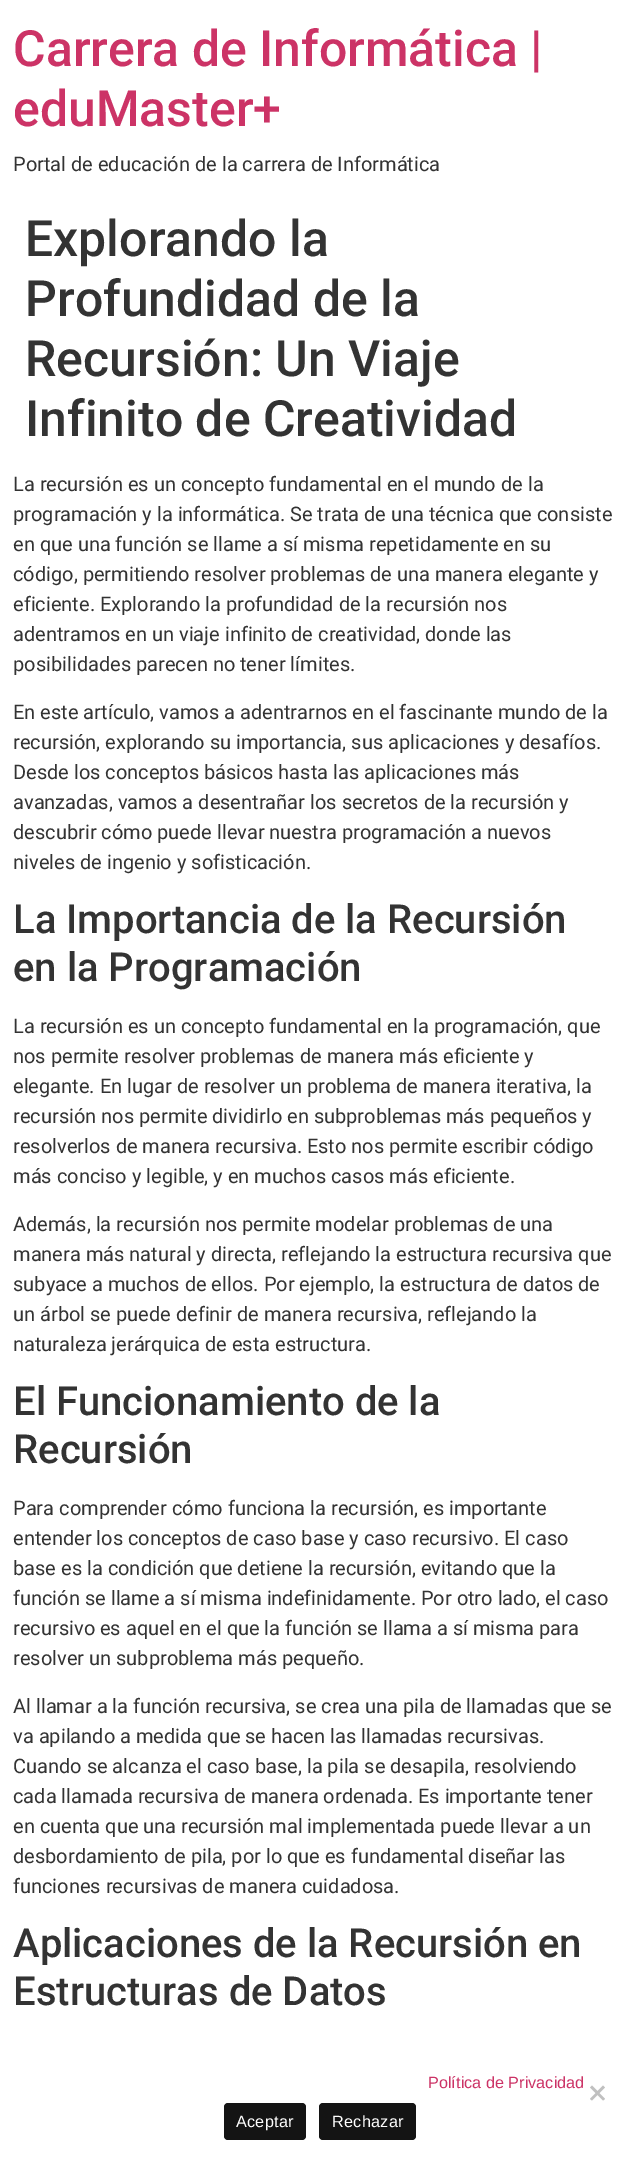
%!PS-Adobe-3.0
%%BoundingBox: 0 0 627 2158
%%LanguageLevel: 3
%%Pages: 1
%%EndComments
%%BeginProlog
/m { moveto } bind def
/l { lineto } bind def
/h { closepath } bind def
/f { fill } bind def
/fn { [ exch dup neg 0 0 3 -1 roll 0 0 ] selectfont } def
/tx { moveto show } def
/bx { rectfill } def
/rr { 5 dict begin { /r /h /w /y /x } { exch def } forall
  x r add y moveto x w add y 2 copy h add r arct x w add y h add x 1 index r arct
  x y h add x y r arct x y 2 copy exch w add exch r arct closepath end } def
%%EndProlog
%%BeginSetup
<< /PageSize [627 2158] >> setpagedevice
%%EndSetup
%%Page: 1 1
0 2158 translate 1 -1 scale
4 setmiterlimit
1 setgray
0 0 627 2158 bx
/Roboto-Medium 50 fn
0.8 0.2 0.4 setrgbcolor
(Carrera de Informática |) 13 66 tx
(eduMaster+) 13 126 tx
/Roboto-Regular 20 fn
0.2 setgray
(Portal de educación de la carrera de Informática) 13 171 tx
/Roboto-Medium 50 fn
(Explorando la) 25 256 tx
(Profundidad de la) 25 316 tx
(Recursión: Un Viaje) 25 376 tx
(Infinito de Creatividad) 25 436 tx
/Roboto-Regular 20 fn
(La recursión es un concepto fundamental en el mundo de la) 13 491 tx
(programación y la informática. Se trata de una técnica que consiste) 13 521 tx
(en que una función se llame a sí misma repetidamente en su) 13 551 tx
(código, permitiendo resolver problemas de una manera elegante y) 13 581 tx
(eficiente. Explorando la profundidad de la recursión nos) 13 611 tx
(adentramos en un viaje infinito de creatividad, donde las) 13 641 tx
(posibilidades parecen no tener límites.) 13 671 tx
(En este artículo, vamos a adentrarnos en el fascinante mundo de la) 13 719 tx
(recursión, explorando su importancia, sus aplicaciones y desafíos.) 13 749 tx
(Desde los conceptos básicos hasta las aplicaciones más) 13 779 tx
(avanzadas, vamos a desentrañar los secretos de la recursión y) 13 809 tx
(descubrir cómo puede llevar nuestra programación a nuevos) 13 839 tx
(niveles de ingenio y sofisticación.) 13 869 tx
/Roboto-Medium 40 fn
(La Importancia de la Recursión) 13 933 tx
(en la Programación) 13 981 tx
/Roboto-Regular 20 fn
(La recursión es un concepto fundamental en la programación, que) 13 1033 tx
(nos permite resolver problemas de manera más eficiente y) 13 1063 tx
(elegante. En lugar de resolver un problema de manera iterativa, la) 13 1093 tx
(recursión nos permite dividirlo en subproblemas más pequeños y) 13 1123 tx
(resolverlos de manera recursiva. Esto nos permite escribir código) 13 1153 tx
(más conciso y legible, y en muchos casos más eficiente.) 13 1183 tx
(Además, la recursión nos permite modelar problemas de una) 13 1231 tx
(manera más natural y directa, reflejando la estructura recursiva que) 13 1261 tx
(subyace a muchos de ellos. Por ejemplo, la estructura de datos de) 13 1291 tx
(un árbol se puede definir de manera recursiva, reflejando la) 13 1321 tx
(naturaleza jerárquica de esta estructura.) 13 1351 tx
/Roboto-Medium 40 fn
(El Funcionamiento de la) 13 1415 tx
(Recursión) 13 1463 tx
/Roboto-Regular 20 fn
(Para comprender cómo funciona la recursión, es importante) 13 1515 tx
(entender los conceptos de caso base y caso recursivo. El caso) 13 1545 tx
(base es la condición que detiene la recursión, evitando que la) 13 1575 tx
(función se llame a sí misma indefinidamente. Por otro lado, el caso) 13 1605 tx
(recursivo es aquel en el que la función se llama a sí misma para) 13 1635 tx
(resolver un subproblema más pequeño.) 13 1665 tx
(Al llamar a la función recursiva, se crea una pila de llamadas que se) 13 1713 tx
(va apilando a medida que se hacen las llamadas recursivas.) 13 1743 tx
(Cuando se alcanza el caso base, la pila se desapila, resolviendo) 13 1773 tx
(cada llamada recursiva de manera ordenada. Es importante tener) 13 1803 tx
(en cuenta que una recursión mal implementada puede llevar a un) 13 1833 tx
(desbordamiento de pila, por lo que es fundamental diseñar las) 13 1863 tx
(funciones recursivas de manera cuidadosa.) 13 1893 tx
/Roboto-Medium 40 fn
(Aplicaciones de la Recursión en) 13 1957 tx
(Estructuras de Datos) 13 2005 tx
/LiberationSans-Regular 16.25 fn
0.8 0.2 0.4 setrgbcolor
(Política de Privacidad) 428 2088 tx
0.753 setgray
603 2085.5 m 605 2087.5 l 592 2100.5 l 590 2099 l h f
590 2087.5 m 592 2085.5 l 605 2099 l 603 2100.5 l h f
0.078 setgray
224 2103 82 37 4 rr f
1 setgray
236 2127 m 0.25 0 (Aceptar) ashow
0.078 setgray
319 2103 97 37 4 rr f
1 setgray
332 2127 m 0.25 0 (Rechazar) ashow
showpage
%%EOF
